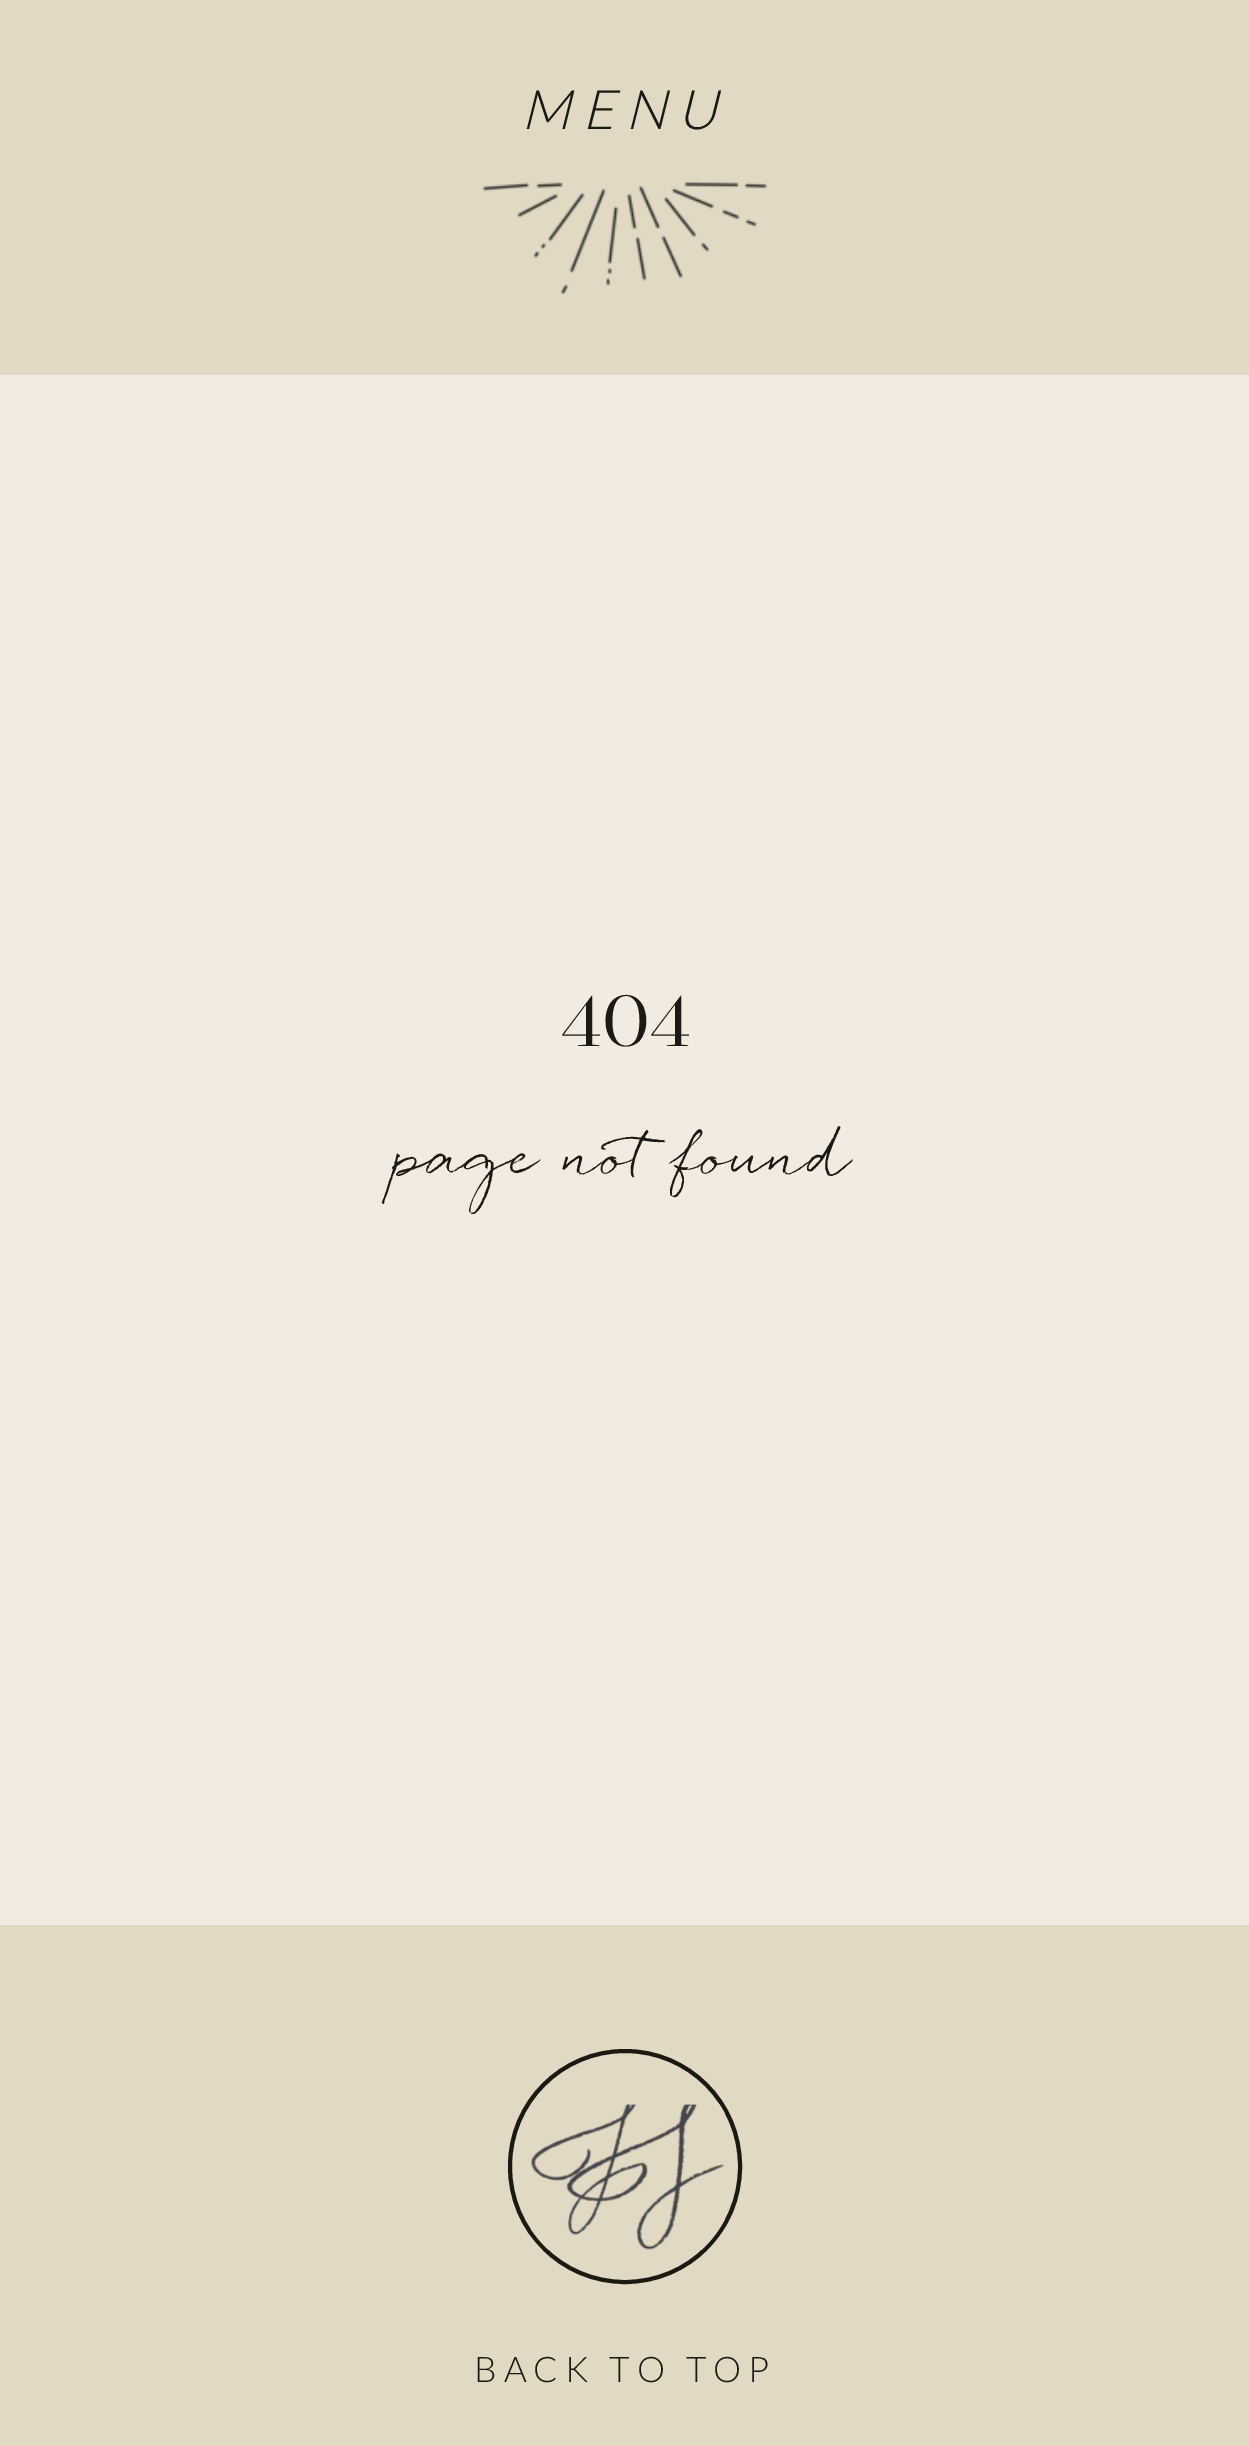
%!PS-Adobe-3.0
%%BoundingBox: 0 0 1249 2446
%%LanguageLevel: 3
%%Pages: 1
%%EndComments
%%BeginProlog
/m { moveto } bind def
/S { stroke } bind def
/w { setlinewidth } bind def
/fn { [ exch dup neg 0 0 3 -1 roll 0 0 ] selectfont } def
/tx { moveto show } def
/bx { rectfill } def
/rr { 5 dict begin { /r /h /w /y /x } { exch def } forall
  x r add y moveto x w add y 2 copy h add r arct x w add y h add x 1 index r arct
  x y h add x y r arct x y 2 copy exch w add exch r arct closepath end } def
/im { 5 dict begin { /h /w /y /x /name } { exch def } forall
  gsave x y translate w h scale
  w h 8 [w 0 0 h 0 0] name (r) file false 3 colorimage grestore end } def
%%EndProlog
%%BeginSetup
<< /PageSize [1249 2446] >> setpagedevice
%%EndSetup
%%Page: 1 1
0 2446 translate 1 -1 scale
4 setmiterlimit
0.949 0.925 0.878 setrgbcolor
0 0 1249 2446 bx
0.882 0.851 0.765 setrgbcolor
0 0 1249 375 bx
/Lato-LightItalic 54.5 fn
0.11 0.098 0.071 setrgbcolor
521 129 m 11 0 (MENU) ashow
(image0.raw) 482 181 286 114 im
/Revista-Regular 78 fn
(404) 561 1046 tx
/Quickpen-Regular 58.5 fn
(page not found) 397 1175 tx
0.882 0.851 0.765 setrgbcolor
0 1925 1249 521 bx
0.11 0.098 0.071 setrgbcolor
4 w
510 2051 230 231 115 rr S
(image1.raw) 531 2104 194 146 im
/Lato-Light 35.25 fn
474 2382 m 7 0 (BACK TO TOP) ashow
showpage
%%EOF
